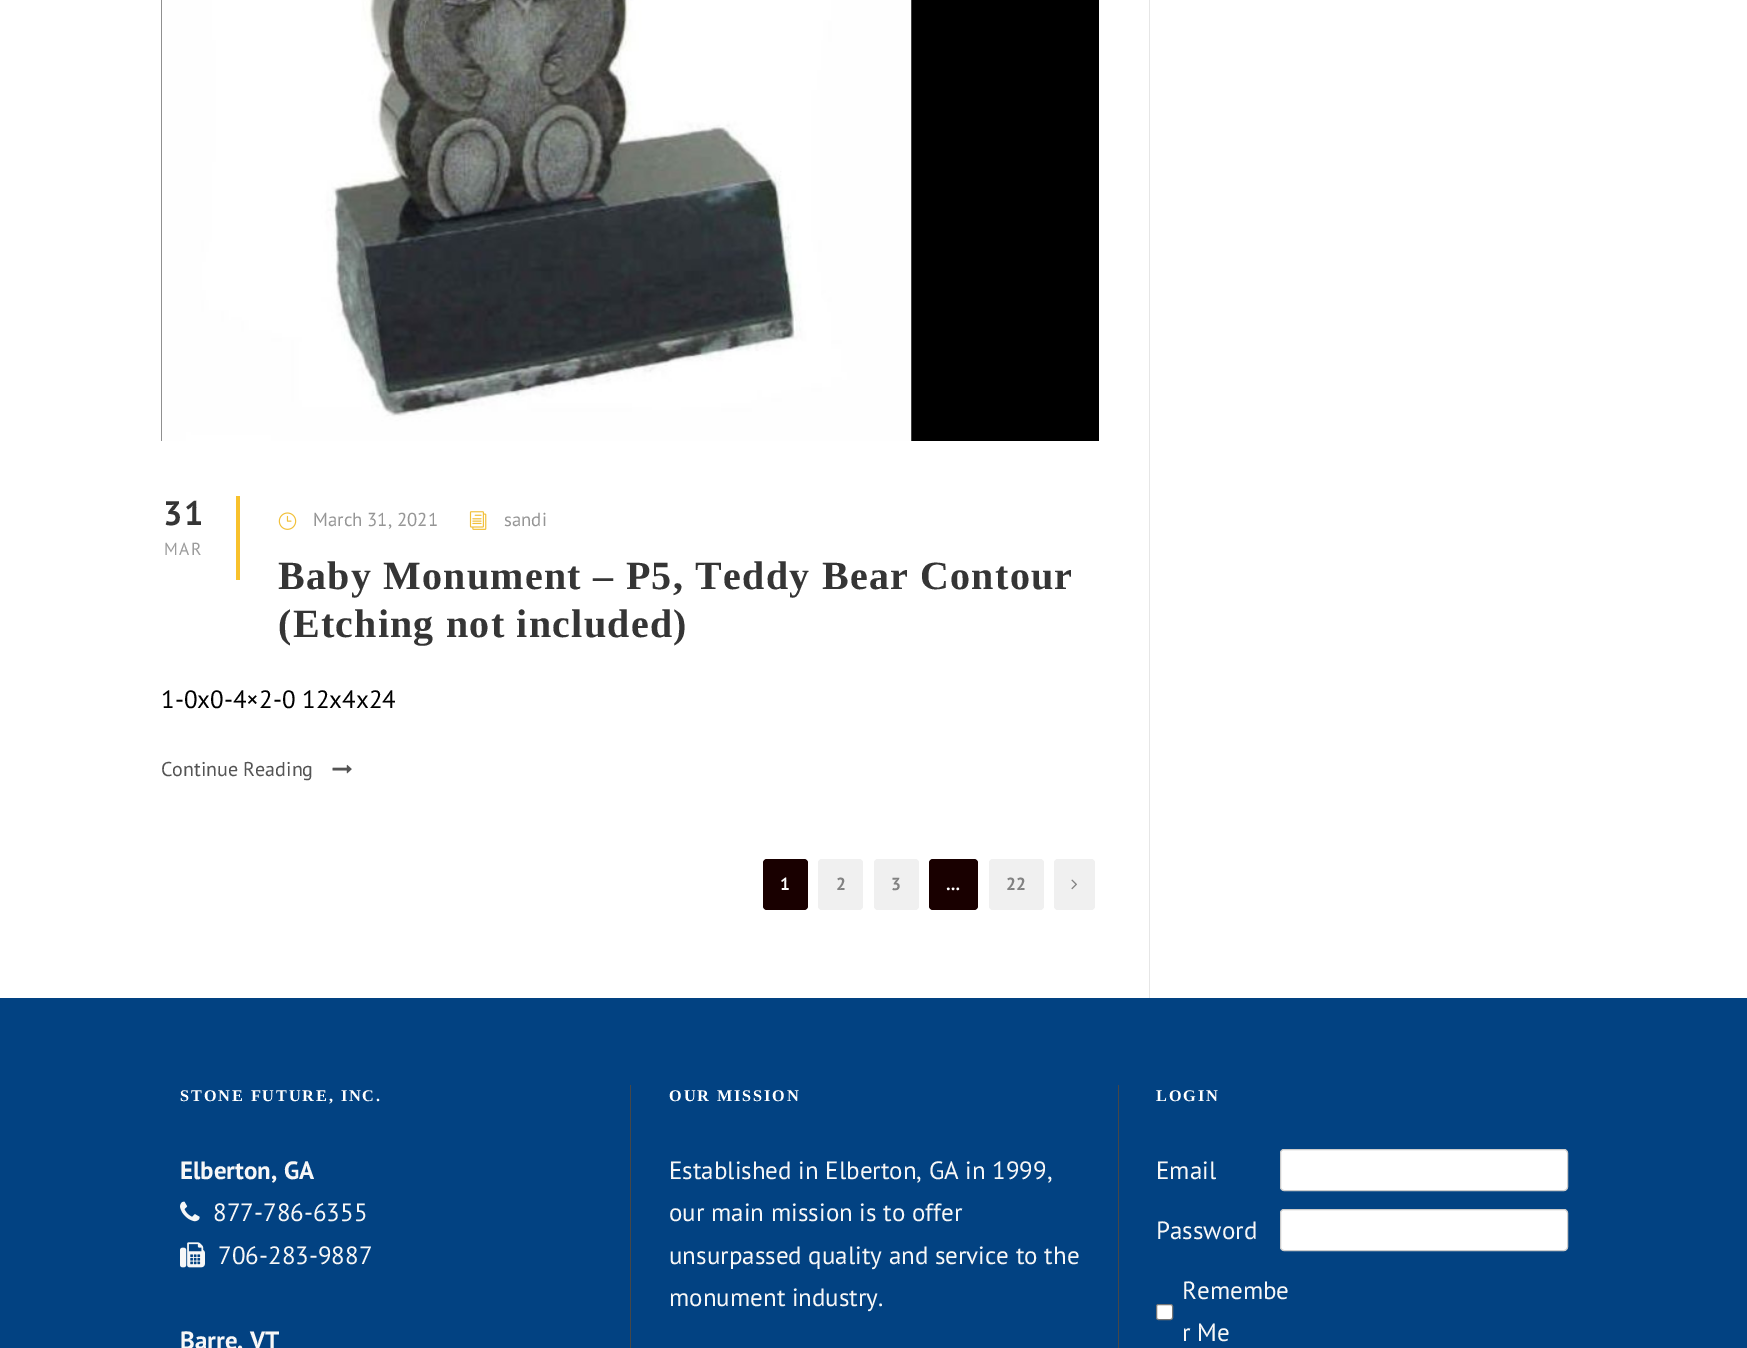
%!PS-Adobe-3.0
%%BoundingBox: 0 0 1747 1348
%%LanguageLevel: 3
%%Pages: 1
%%EndComments
%%BeginProlog
/m { moveto } bind def
/f { fill } bind def
/S { stroke } bind def
/q { gsave } bind def
/Q { grestore } bind def
/fn { [ exch dup neg 0 0 3 -1 roll 0 0 ] selectfont } def
/tx { moveto show } def
/bx { rectfill } def
/rr { 5 dict begin { /r /h /w /y /x } { exch def } forall
  x r add y moveto x w add y 2 copy h add r arct x w add y h add x 1 index r arct
  x y h add x y r arct x y 2 copy exch w add exch r arct closepath end } def
/im { 5 dict begin { /h /w /y /x /name } { exch def } forall
  gsave x y translate w h scale
  w h 8 [w 0 0 h 0 0] name (r) file false 3 colorimage grestore end } def
%%EndProlog
%%BeginSetup
<< /PageSize [1747 1348] >> setpagedevice
%%EndSetup
%%Page: 1 1
0 1348 translate 1 -1 scale
4 setmiterlimit
1 setgray
0 0 1747 1348 bx
0 setgray
161 0 938 441 bx
(image0.raw) 161 0 751 441 im
0.973 0.757 0.173 setrgbcolor
236 496 4 84 bx
/PTSans-Bold 34 fn
0.208 setgray
163 525 m 1.25 0 (31) ashow
/PTSans-Regular 17.5 fn
0.608 setgray
164 555 m 1.25 0 (MAR) ashow
(image1.raw) 278 512 19 18 im
/PTSans-Regular 18.75 fn
0.584 setgray
(March 31, 2021) 313 526 tx
(image2.raw) 469 511 18 19 im
(sandi) 504 526 tx
/LiberationSerif-Bold 40 fn
0.208 setgray
278 589 m 1.25 0 (Baby Monument – P5, Teddy Bear Contour) ashow
278 637 m 1.25 0 (\(Etching not included\)) ashow
/PTSans-Regular 25 fn
0 setgray
(1-0x0-4×2-0 12x4x24) 161 708 tx
/PTSans-Regular 20 fn
0.329 setgray
(Continue Reading) 161 776 tx
(image3.raw) 332 764 20 10 im
0.098 0 0 setrgbcolor
763 859 45 51 4 rr f
/PTSans-Bold 17.5 fn
1 setgray
(1) 780 890 tx
0.941 setgray
818 859 45 51 4 rr f
0.51 setgray
(2) 836 890 tx
0.941 setgray
874 859 45 51 4 rr f
0.51 setgray
(3) 891 890 tx
0.098 0 0 setrgbcolor
929 859 49 51 4 rr f
1 setgray
(…) 946 890 tx
0.941 setgray
989 859 55 51 4 rr f
0.51 setgray
(22) 1006 890 tx
0.941 setgray
1054 859 41 51 4 rr f
(image4.raw) 1071 879 6 11 im
0.902 setgray
1149 0 1 998 bx
0.008 0.259 0.51 setrgbcolor
0 998 1747 350 bx
/LiberationSerif-Bold 16.25 fn
1 setgray
180 1101 m 1.9 0 (STONE FUTURE, INC.) ashow
/PTSans-Bold 25 fn
0.969 setgray
(Elberton, GA) 180 1179 tx
(image5.raw) 180 1201 20 21 im
/PTSans-Regular 25 fn
(877-786-6355) 213 1221 tx
(image6.raw) 180 1242 25 26 im
(706-283-9887) 218 1264 tx
/PTSans-Bold 25 fn
(Barre, VT) 180 1349 tx
0.278 setgray
630 1085 1 263 bx
/LiberationSerif-Bold 16.25 fn
1 setgray
669 1101 m 1.9 0 (OUR MISSION) ashow
/PTSans-Regular 25 fn
0.969 setgray
(Established in Elberton, GA in 1999,) 669 1179 tx
(our main mission is to offer) 669 1221 tx
(unsurpassed quality and service to the) 669 1264 tx
(monument industry.) 669 1306 tx
0.278 setgray
1118 1085 1 263 bx
/LiberationSerif-Bold 16.25 fn
1 setgray
1156 1101 m 1.9 0 (LOGIN) ashow
/PTSans-Regular 25 fn
0.969 setgray
(Email) 1156 1179 tx
1 setgray
1280.5 1149.5 287 41 3.5 rr q f Q
0.8 setgray
S
0.969 setgray
(Password) 1156 1239 tx
1 setgray
1280.5 1209.5 287 41 3.5 rr q f Q
0.8 setgray
S
1 setgray
1156.5 1304.5 16 15 2 rr q f Q
0.463 setgray
S
0.969 setgray
(Remembe) 1182 1299 tx
(r Me) 1182 1341 tx
showpage
%%EOF
